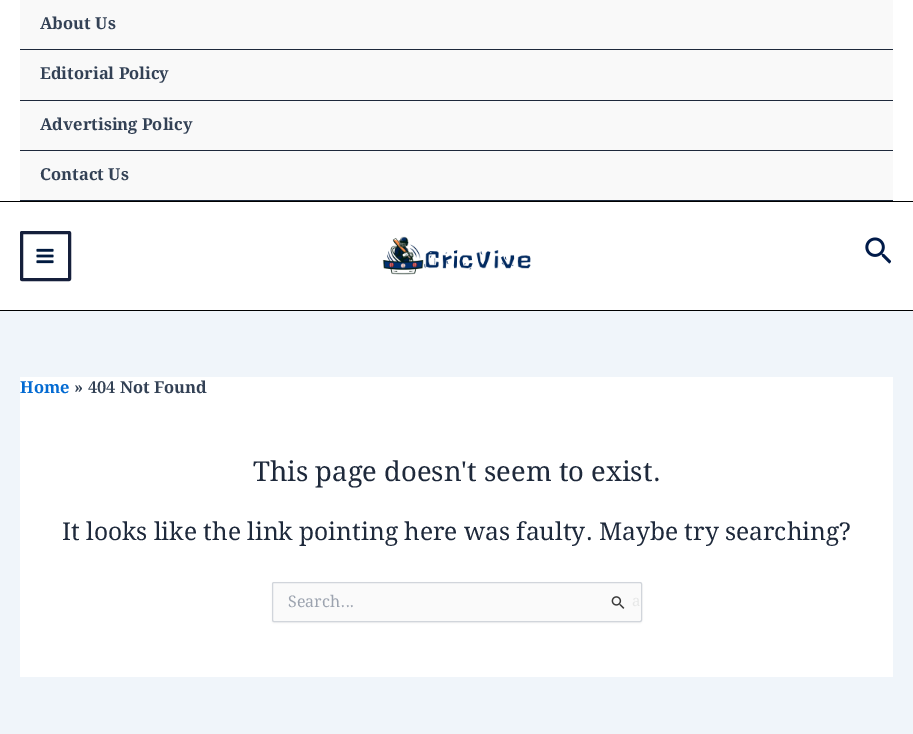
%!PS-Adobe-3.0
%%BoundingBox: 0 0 913 734
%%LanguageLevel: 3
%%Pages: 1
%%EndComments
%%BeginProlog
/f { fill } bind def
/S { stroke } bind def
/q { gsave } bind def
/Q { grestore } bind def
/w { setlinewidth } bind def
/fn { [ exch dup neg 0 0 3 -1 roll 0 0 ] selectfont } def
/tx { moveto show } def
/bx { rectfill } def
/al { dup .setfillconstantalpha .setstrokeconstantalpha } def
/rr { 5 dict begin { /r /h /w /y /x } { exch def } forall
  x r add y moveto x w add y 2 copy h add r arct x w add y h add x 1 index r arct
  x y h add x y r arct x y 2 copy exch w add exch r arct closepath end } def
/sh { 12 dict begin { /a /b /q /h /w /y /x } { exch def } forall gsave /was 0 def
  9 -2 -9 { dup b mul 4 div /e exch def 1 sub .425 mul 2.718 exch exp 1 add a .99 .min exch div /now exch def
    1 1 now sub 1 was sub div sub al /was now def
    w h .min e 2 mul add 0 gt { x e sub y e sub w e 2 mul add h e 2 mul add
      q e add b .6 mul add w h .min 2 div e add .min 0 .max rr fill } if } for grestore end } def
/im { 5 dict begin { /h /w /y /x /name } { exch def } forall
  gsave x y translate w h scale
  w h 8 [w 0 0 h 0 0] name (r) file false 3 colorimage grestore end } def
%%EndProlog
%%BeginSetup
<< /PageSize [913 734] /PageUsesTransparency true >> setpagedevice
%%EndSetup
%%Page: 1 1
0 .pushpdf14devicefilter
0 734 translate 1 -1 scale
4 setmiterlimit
0.941 0.961 0.98 setrgbcolor
0 0 913 734 bx
1 setgray
0 0 913 201 bx
0 setgray
0 201 913 1 bx
0.976 setgray
20 0 873 200 bx
0.118 0.161 0.231 setrgbcolor
20 49 873 1 bx
/NotoSerifBengali-Bold 16.5 fn
0.2 0.255 0.333 setrgbcolor
(About Us) 40 29 tx
0.118 0.161 0.231 setrgbcolor
20 100 873 1 bx
0.2 0.255 0.333 setrgbcolor
(Editorial Policy) 40 79 tx
0.118 0.161 0.231 setrgbcolor
20 150 873 1 bx
0.2 0.255 0.333 setrgbcolor
(Advertising Policy) 40 130 tx
0.118 0.161 0.231 setrgbcolor
20 200 873 1 bx
0.2 0.255 0.333 setrgbcolor
(Contact Us) 40 180 tx
1 setgray
0 202 913 108 bx
0.004 setgray
0 310 913 1 bx
0.082 0.122 0.231 setrgbcolor
3 w
21.5 232.5 48 47 0.5 rr S
(image0.raw) 36 248 18 16 im
(image1.raw) 382 236 149 39 im
(image2.raw) 865 237 26 27 im
1 setgray
20 377 873 300 bx
0.016 0.42 0.824 setrgbcolor
(Home) 20 393 tx
0.2 0.255 0.333 setrgbcolor
(») 74 393 tx
(404 Not Found) 88 393 tx
/NotoSerifBengali-Regular 27.4 fn
0.118 0.161 0.231 setrgbcolor
(This page doesn't seem to exist.) 253 481 tx
/NotoSerifBengali-Regular 24.6 fn
(It looks like the link pointing here was faulty. Maybe try searching?) 62 540 tx
0 setgray
272 583 370 40 2 1 0.05 sh
0.98 setgray
272.5 582.5 369 39 1.5 rr q f Q
0.82 0.835 0.859 setrgbcolor
1 w
S
/NotoSerifBengali-Regular 16 fn
0.612 0.639 0.686 setrgbcolor
(Search...) 288 607 tx
(image3.raw) 611 596 14 13 im
/NotoSerifBengali-Regular 15 fn
0.902 0.906 0.906 setrgbcolor
(a) 632 606 tx
.poppdf14devicefilter showpage
%%EOF
